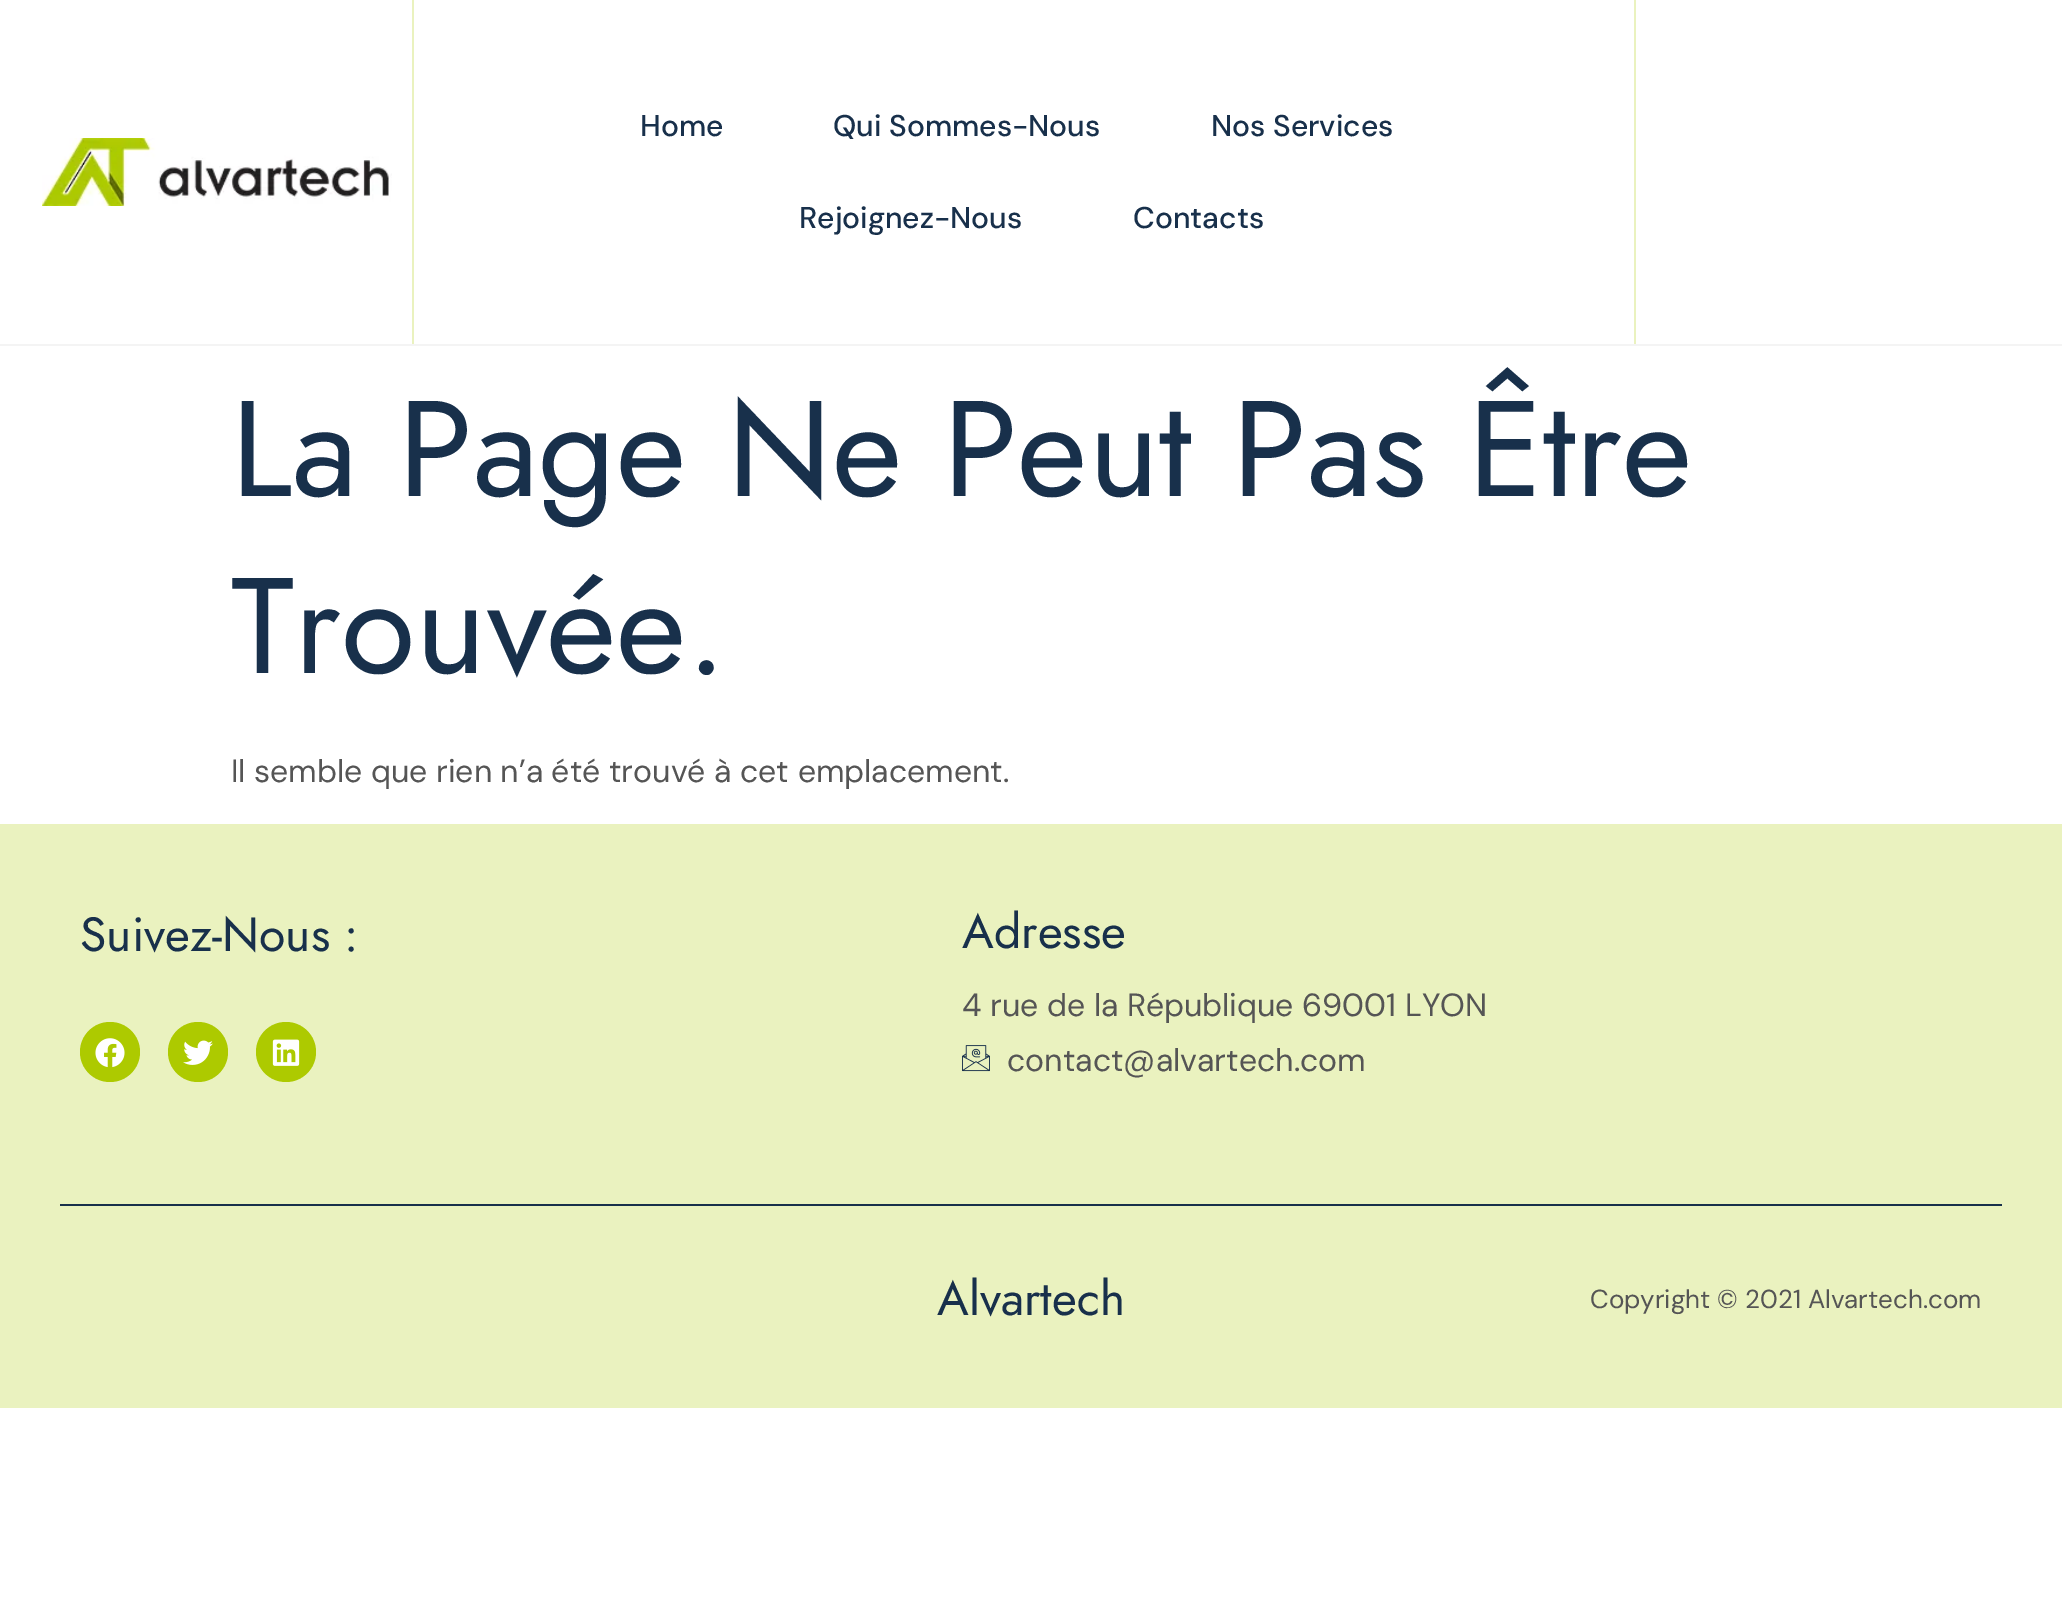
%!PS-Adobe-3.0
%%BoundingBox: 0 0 2062 1602
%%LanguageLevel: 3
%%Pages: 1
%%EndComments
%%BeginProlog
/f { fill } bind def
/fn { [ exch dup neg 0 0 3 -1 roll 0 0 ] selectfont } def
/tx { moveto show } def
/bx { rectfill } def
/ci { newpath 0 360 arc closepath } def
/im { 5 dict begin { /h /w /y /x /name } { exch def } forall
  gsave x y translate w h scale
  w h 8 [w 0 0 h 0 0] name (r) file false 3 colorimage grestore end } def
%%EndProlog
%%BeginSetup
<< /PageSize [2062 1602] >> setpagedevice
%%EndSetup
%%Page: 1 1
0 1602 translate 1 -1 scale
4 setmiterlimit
1 setgray
0 0 2062 1602 bx
0.957 setgray
0 344 2062 2 bx
(image0.raw) 42 138 350 68 im
0.918 0.949 0.749 setrgbcolor
1634 0 2 344 bx
412 0 2 344 bx
/DMSans-Medium 30 fn
0.094 0.188 0.294 setrgbcolor
(Home) 640 136 tx
(Qui Sommes-Nous) 833 136 tx
(Nos Services) 1211 136 tx
(Rejoignez-Nous) 799 228 tx
(Contacts) 1133 228 tx
/Jost-Regular 136 fn
(La Page Ne Peut Pas Être) 231 496 tx
(Trouvée.) 231 673 tx
/DMSans-Regular 32 fn
0.333 setgray
(Il semble que rien n’a été trouvé à cet emplacement.) 231 782 tx
0.918 0.949 0.749 setrgbcolor
0 824 2062 584 bx
/Jost-Regular 48 fn
0.094 0.188 0.294 setrgbcolor
(Suivez-Nous :) 80 951 tx
0.678 0.792 0 setrgbcolor
110 1052 30 ci f
(image1.raw) 95 1038 30 30 im
198 1052 30 ci f
(image2.raw) 183 1040 30 25 im
286 1052 30 ci f
(image3.raw) 272 1039 28 27 im
0.094 0.188 0.294 setrgbcolor
(Adresse) 962 948 tx
/DMSans-Regular 32 fn
0.333 setgray
(4 rue de la République 69001 LYON) 962 1016 tx
(image4.raw) 962 1045 28 27 im
(contact@alvartech.com) 1007 1071 tx
0.094 0.188 0.294 setrgbcolor
60 1204 1942 2 bx
/Jost-Regular 48 fn
(Alvartech) 937 1315 tx
/DMSans-Regular 26 fn
0.333 setgray
(Copyright © 2021 Alvartech.com) 1590 1308 tx
showpage
%%EOF
